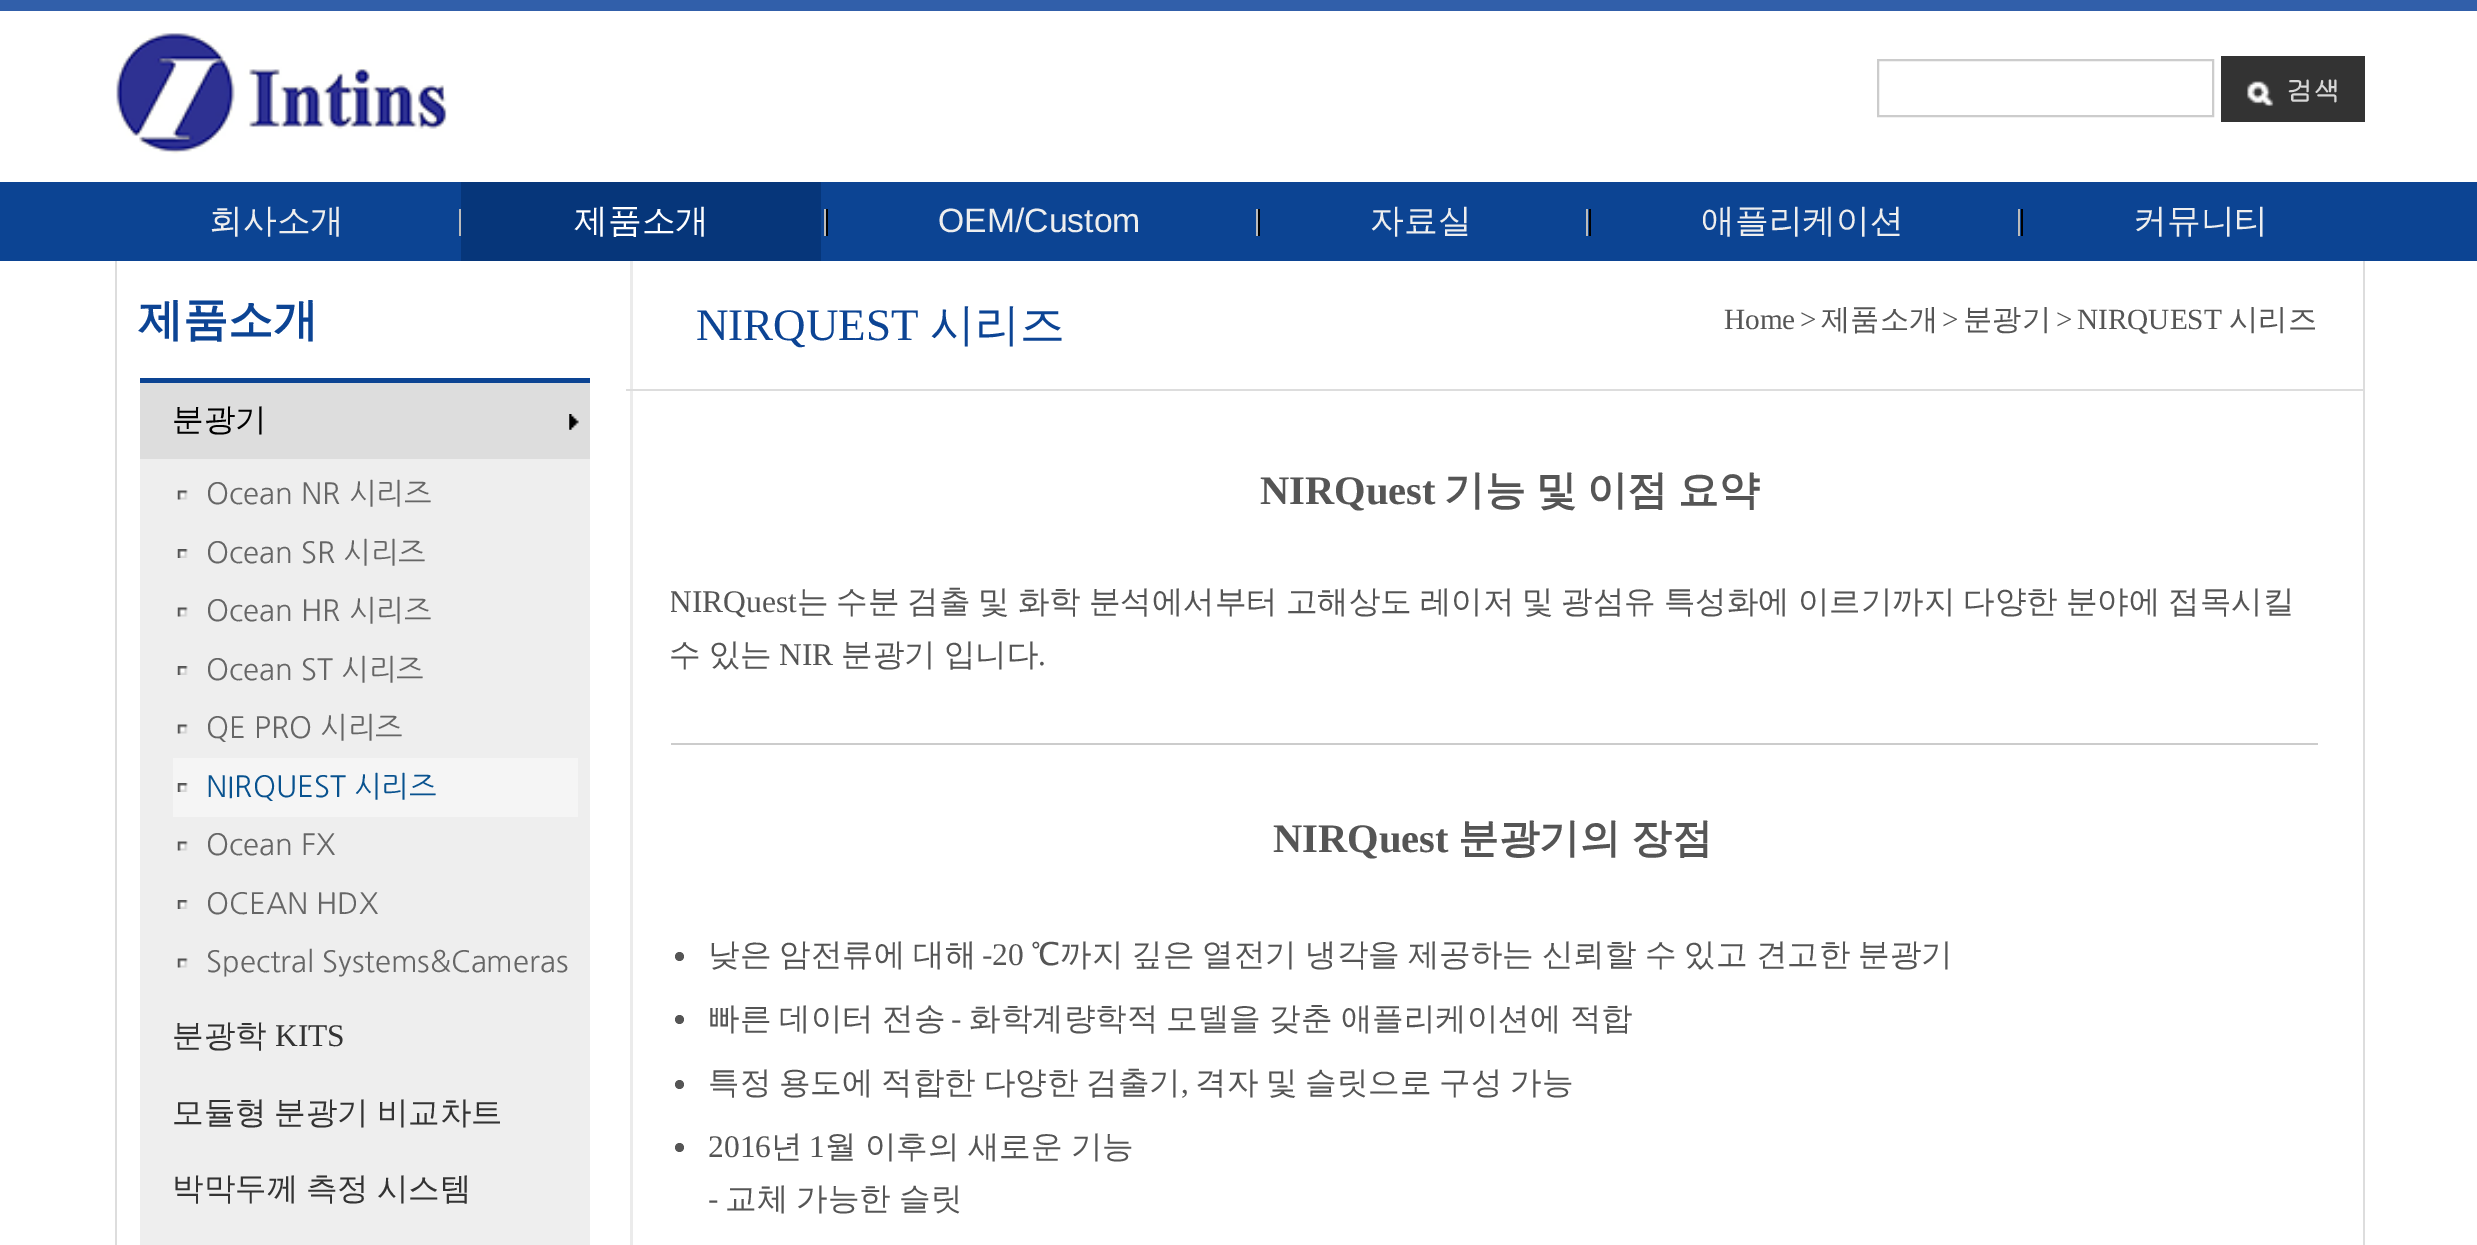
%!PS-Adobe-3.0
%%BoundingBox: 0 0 2477 1245
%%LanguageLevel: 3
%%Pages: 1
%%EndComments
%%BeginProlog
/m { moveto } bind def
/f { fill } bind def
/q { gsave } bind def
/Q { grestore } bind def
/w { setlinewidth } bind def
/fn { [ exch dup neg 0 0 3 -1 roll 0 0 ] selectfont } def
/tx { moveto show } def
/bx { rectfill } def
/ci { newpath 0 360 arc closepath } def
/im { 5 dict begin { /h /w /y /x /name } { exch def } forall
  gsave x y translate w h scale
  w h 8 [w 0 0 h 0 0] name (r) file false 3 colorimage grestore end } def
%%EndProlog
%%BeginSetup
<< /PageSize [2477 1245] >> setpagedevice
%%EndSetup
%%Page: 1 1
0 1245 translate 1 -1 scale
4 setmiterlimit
1 setgray
0 0 2477 1245 bx
0.192 0.373 0.667 setrgbcolor
0 0 2477 11 bx
(image0.raw) 116 33 331 121 im
0.8 setgray
2 w
1878 60 335 56 rectstroke
0.2 setgray
2221 56 144 66 bx
(image1.raw) 2247 81 27 25 im
/Gulim-Bold 27 fn
0.843 setgray
(검색) 2286 101 tx
0.047 0.267 0.576 setrgbcolor
0 182 2477 79 bx
/WenQuanYiZenHei-Medium 33.75 fn
0.933 setgray
(회사소개) 209 232 tx
0.733 setgray
459 209 2 27 bx
0.024 0.212 0.478 setrgbcolor
461 182 360 79 bx
1 setgray
(제품소개) 574 232 tx
0 setgray
826 209 2 27 bx
0.733 setgray
824 209 2 27 bx
/LiberationSans-Regular 33.75 fn
0.933 setgray
(OEM/Custom) 938 232 tx
0 setgray
1258 209 2 27 bx
0.733 setgray
1256 209 2 27 bx
/WenQuanYiZenHei-Medium 33.75 fn
0.933 setgray
(자료실) 1370 232 tx
0 setgray
1589 209 2 27 bx
0.733 setgray
1586 209 2 27 bx
0.933 setgray
(애플리케이션) 1701 232 tx
0 setgray
2021 209 2 27 bx
0.733 setgray
2018 209 2 27 bx
0.933 setgray
(커뮤니티) 2133 232 tx
0.922 setgray
630 261 3 984 bx
0.867 setgray
2363 261 2 984 bx
115 261 2 984 bx
0.047 0.267 0.576 setrgbcolor
140 378 450 5 bx
/WenQuanYiZenHei-Bold 45 fn
0.047 0.267 0.58 setrgbcolor
(제품소개) 138 335 tx
0.933 setgray
140 459 450 786 bx
0.867 setgray
140 383 450 76 bx
/WenQuanYiZenHei-Medium 31.5 fn
0 setgray
(분광기) 172 430 tx
(image2.raw) 569 414 10 16 im
(image3.raw) 177 490 11 10 im
/NanumGothic-Regular 29.25 fn
0.4 setgray
(Ocean NR 시리즈) 206 504 tx
(image4.raw) 177 549 11 9 im
(Ocean SR 시리즈) 206 563 tx
(image3.raw) 177 607 11 10 im
(Ocean HR 시리즈) 206 621 tx
(image4.raw) 177 666 11 9 im
(Ocean ST 시리즈) 206 680 tx
(image3.raw) 177 724 11 10 im
(QE PRO 시리즈) 206 738 tx
0.961 setgray
173 758 405 59 bx
(image5.raw) 177 783 11 9 im
0.031 0.322 0.561 setrgbcolor
(NIRQUEST 시리즈) 206 797 tx
(image3.raw) 177 841 11 10 im
0.4 setgray
(Ocean FX) 206 855 tx
(image4.raw) 177 900 11 9 im
(OCEAN HDX) 206 914 tx
(image3.raw) 177 958 11 10 im
(Spectral Systems&Cameras) 206 972 tx
/WenQuanYiZenHei-Medium 31.5 fn
0.2 setgray
(분광학) 172 1046 tx
/LiberationSerif-Regular 31.5 fn
(KITS) 275 1046 tx
/WenQuanYiZenHei-Medium 31.5 fn
172 1123 m -1.5 0 32 (모듈형 분광기 비교차트) widthshow
172 1199 m -1.5 0 32 (박막두께 측정 시스템) widthshow
0.867 setgray
626 389 1737 2 bx
/LiberationSerif-Regular 45 fn
0.047 0.267 0.58 setrgbcolor
(NIRQUEST) 696 340 tx
/WenQuanYiZenHei-Medium 45 fn
(시리즈) 930 340 tx
/LiberationSerif-Regular 29.25 fn
0.333 setgray
(Home) 1724 329 tx
(>) 1800 329 tx
/WenQuanYiZenHei-Medium 29.25 fn
(제품소개) 1821 329 tx
/LiberationSerif-Regular 29.25 fn
(>) 1942 329 tx
/WenQuanYiZenHei-Medium 29.25 fn
(분광기) 1963 329 tx
/LiberationSerif-Regular 29.25 fn
(>) 2056 329 tx
(NIRQUEST) 2077 329 tx
/WenQuanYiZenHei-Medium 29.25 fn
(시리즈) 2229 329 tx
/LiberationSerif-Bold 40.5 fn
(NIRQuest) 1260 504 tx
/WenQuanYiZenHei-Bold 40.5 fn
1444 504 m -1.5 0 32 (기능 및 이점 요약) widthshow
q
671 459 1647 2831 rectclip
/LiberationSerif-Regular 31.5 fn
(NIRQuest) 669 612 tx
Q
/WenQuanYiZenHei-Medium 31.5 fn
797 612 m -1.5 0 32 (는 수분 검출 및 화학 분석에서부터 고해상도 레이저 및 광섬유 특성화에 이르기까지 다양한 분야에 접목시킬) widthshow
669 665 m -1 0 32 (수 있는) widthshow
/LiberationSerif-Regular 31.5 fn
(NIR) 779 665 tx
/WenQuanYiZenHei-Medium 31.5 fn
841 665 m -1 0 32 (분광기 입니다) widthshow
/LiberationSerif-Regular 31.5 fn
(.) 1038 665 tx
0.8 setgray
671 743 1647 2 bx
/LiberationSerif-Bold 40.5 fn
0.333 setgray
(NIRQuest) 1273 852 tx
/WenQuanYiZenHei-Bold 40.5 fn
1458 852 m -1 0 32 (분광기의 장점) widthshow
679.5 956.5 4.5 ci f
/WenQuanYiZenHei-Medium 31.5 fn
708 965 m -1.25 0 32 (낮은 암전류에 대해) widthshow
/LiberationSerif-Regular 31.5 fn
(-20) 982 965 tx
/WenQuanYiZenHei-Medium 31.5 fn
1031 965 m -1.25 0 32 (℃까지 깊은 열전기 냉각을 제공하는 신뢰할 수 있고 견고한 분광기) widthshow
679.5 1019.5 4.5 ci f
708 1029 m -1 0 32 (빠른 데이터 전송) widthshow
/LiberationSerif-Regular 31.5 fn
(-) 951 1029 tx
/WenQuanYiZenHei-Medium 31.5 fn
969 1029 m -1 0 32 (화학계량학적 모델을 갖춘 애플리케이션에 적합) widthshow
679.5 1084.5 4.5 ci f
708 1093 m -1.5 0 32 (특정 용도에 적합한 다양한 검출기) widthshow
/LiberationSerif-Regular 31.5 fn
(,) 1181 1093 tx
/WenQuanYiZenHei-Medium 31.5 fn
1195 1093 m -1.5 0 32 (격자 및 슬릿으로 구성 가능) widthshow
679.5 1147.5 4.5 ci f
/LiberationSerif-Regular 31.5 fn
(2016) 708 1157 tx
/WenQuanYiZenHei-Medium 31.5 fn
(년) 771 1157 tx
/LiberationSerif-Regular 31.5 fn
(1) 809 1157 tx
/WenQuanYiZenHei-Medium 31.5 fn
825 1157 m -1 0 32 (월 이후의 새로운 기능) widthshow
/LiberationSerif-Regular 31.5 fn
(-) 708 1209 tx
/WenQuanYiZenHei-Medium 31.5 fn
725 1209 m -1 0 32 (교체 가능한 슬릿) widthshow
showpage
%%EOF
